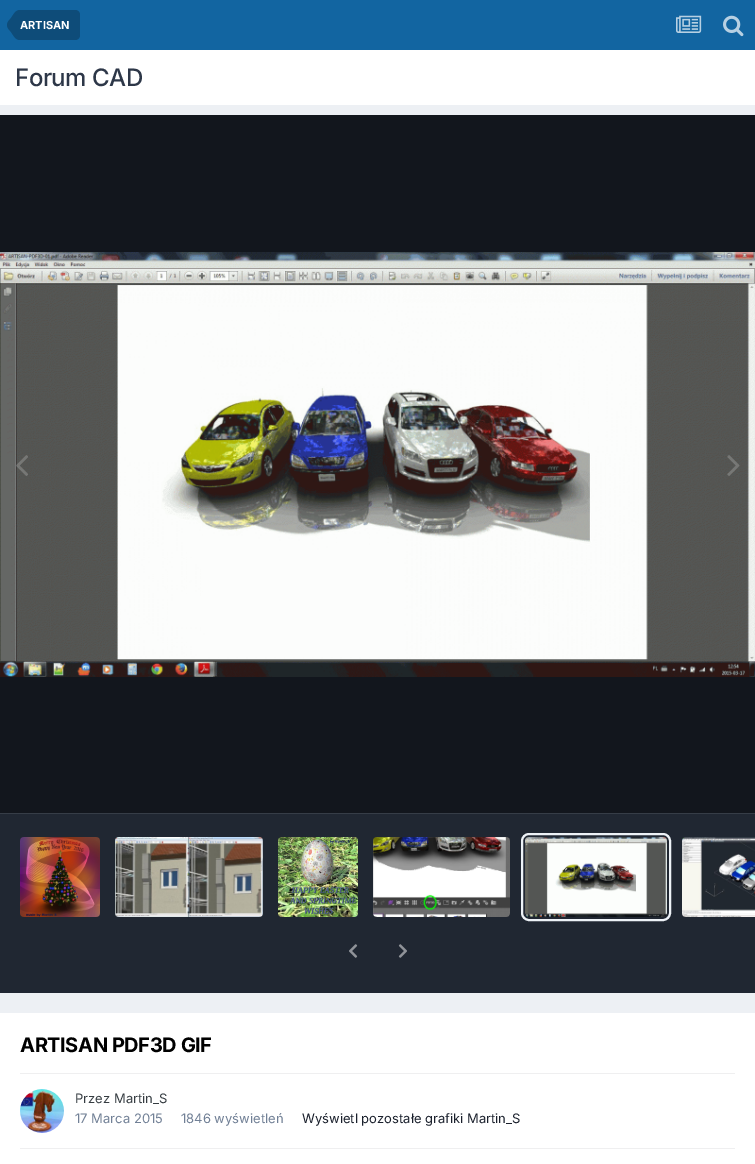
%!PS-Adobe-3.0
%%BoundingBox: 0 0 755 1164
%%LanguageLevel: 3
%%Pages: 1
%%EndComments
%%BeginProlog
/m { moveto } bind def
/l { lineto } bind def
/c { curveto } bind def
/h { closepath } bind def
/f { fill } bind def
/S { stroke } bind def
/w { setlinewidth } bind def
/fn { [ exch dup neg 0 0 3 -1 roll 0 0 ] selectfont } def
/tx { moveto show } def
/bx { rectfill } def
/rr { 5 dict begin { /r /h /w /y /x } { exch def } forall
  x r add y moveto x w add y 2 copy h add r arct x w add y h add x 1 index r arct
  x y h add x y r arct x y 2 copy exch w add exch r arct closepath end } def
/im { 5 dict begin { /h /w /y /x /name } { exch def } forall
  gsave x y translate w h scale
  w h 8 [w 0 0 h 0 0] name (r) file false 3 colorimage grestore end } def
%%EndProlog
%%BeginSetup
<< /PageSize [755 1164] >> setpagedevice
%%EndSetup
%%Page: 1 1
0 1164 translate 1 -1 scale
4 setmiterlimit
0.929 0.941 0.957 setrgbcolor
0 0 755 1164 bx
0.071 0.396 0.631 setrgbcolor
0 0 755 50 bx
0.055 0.298 0.475 setrgbcolor
20 10 m 75 10 l 78 10 80 12 80 15 c 80 35 l 80 38 78 40 75 40 c 20 40 l h f
20 25 m 20 40 l 15.5 40 13.5 35.5 11 32 c 9.5 30 7 28 7 25 c h 20 25 m 7 25 l 7 22 9.5 20 11 18 c 13.5 14.5 15.5 10 20 10 c h f
/Inter-Bold 11 fn
1 setgray
(ARTISAN) 20 29 tx
(image0.raw) 676 15 26 18 im
(image1.raw) 723 15 21 22 im
0 50 755 55 bx
/Inter-Medium 24 fn
0.176 0.216 0.282 setrgbcolor
15 86 m -0.5 0 (Forum CAD) ashow
0.071 0.086 0.114 setrgbcolor
0 115 755 698 bx
(image2.raw) 0 252 755 425 im
(image3.raw) 16 455 12 21 im
(image4.raw) 727 455 13 21 im
0.125 0.153 0.196 setrgbcolor
0 814 755 179 bx
0.212 0.239 0.278 setrgbcolor
0 813 755 1 bx
(image5.raw) 20 837 80 80 im
(image6.raw) 115 837 148 80 im
(image7.raw) 278 837 80 80 im
(image8.raw) 373 837 137 80 im
0.929 0.949 0.969 setrgbcolor
2 w
522 834 148 86 7 rr S
(image9.raw) 525 837 142 80 im
(image10.raw) 682 837 73 80 im
(image11.raw) 349 944 9 14 im
(image12.raw) 398 944 9 14 im
1 setgray
0 1013 755 151 bx
/Inter-Bold 20 fn
0 setgray
20 1052 m -0.4 0 (ARTISAN PDF3D GIF) ashow
0.937 0.937 0.941 setrgbcolor
20 1073 715 1 bx
(image13.raw) 20 1089 44 44 im
/Inter-Regular 13 fn
0.208 0.235 0.255 setrgbcolor
(Przez Martin_S) 75 1103 tx
0.443 0.502 0.588 setrgbcolor
(17 Marca 2015) 75 1123 tx
(1846 wyświetleń) 181 1123 tx
0.102 0.125 0.173 setrgbcolor
(Wyświetl pozostałe grafiki Martin_S) 302 1123 tx
0.937 0.937 0.941 setrgbcolor
20 1148 715 1 bx
showpage
%%EOF
